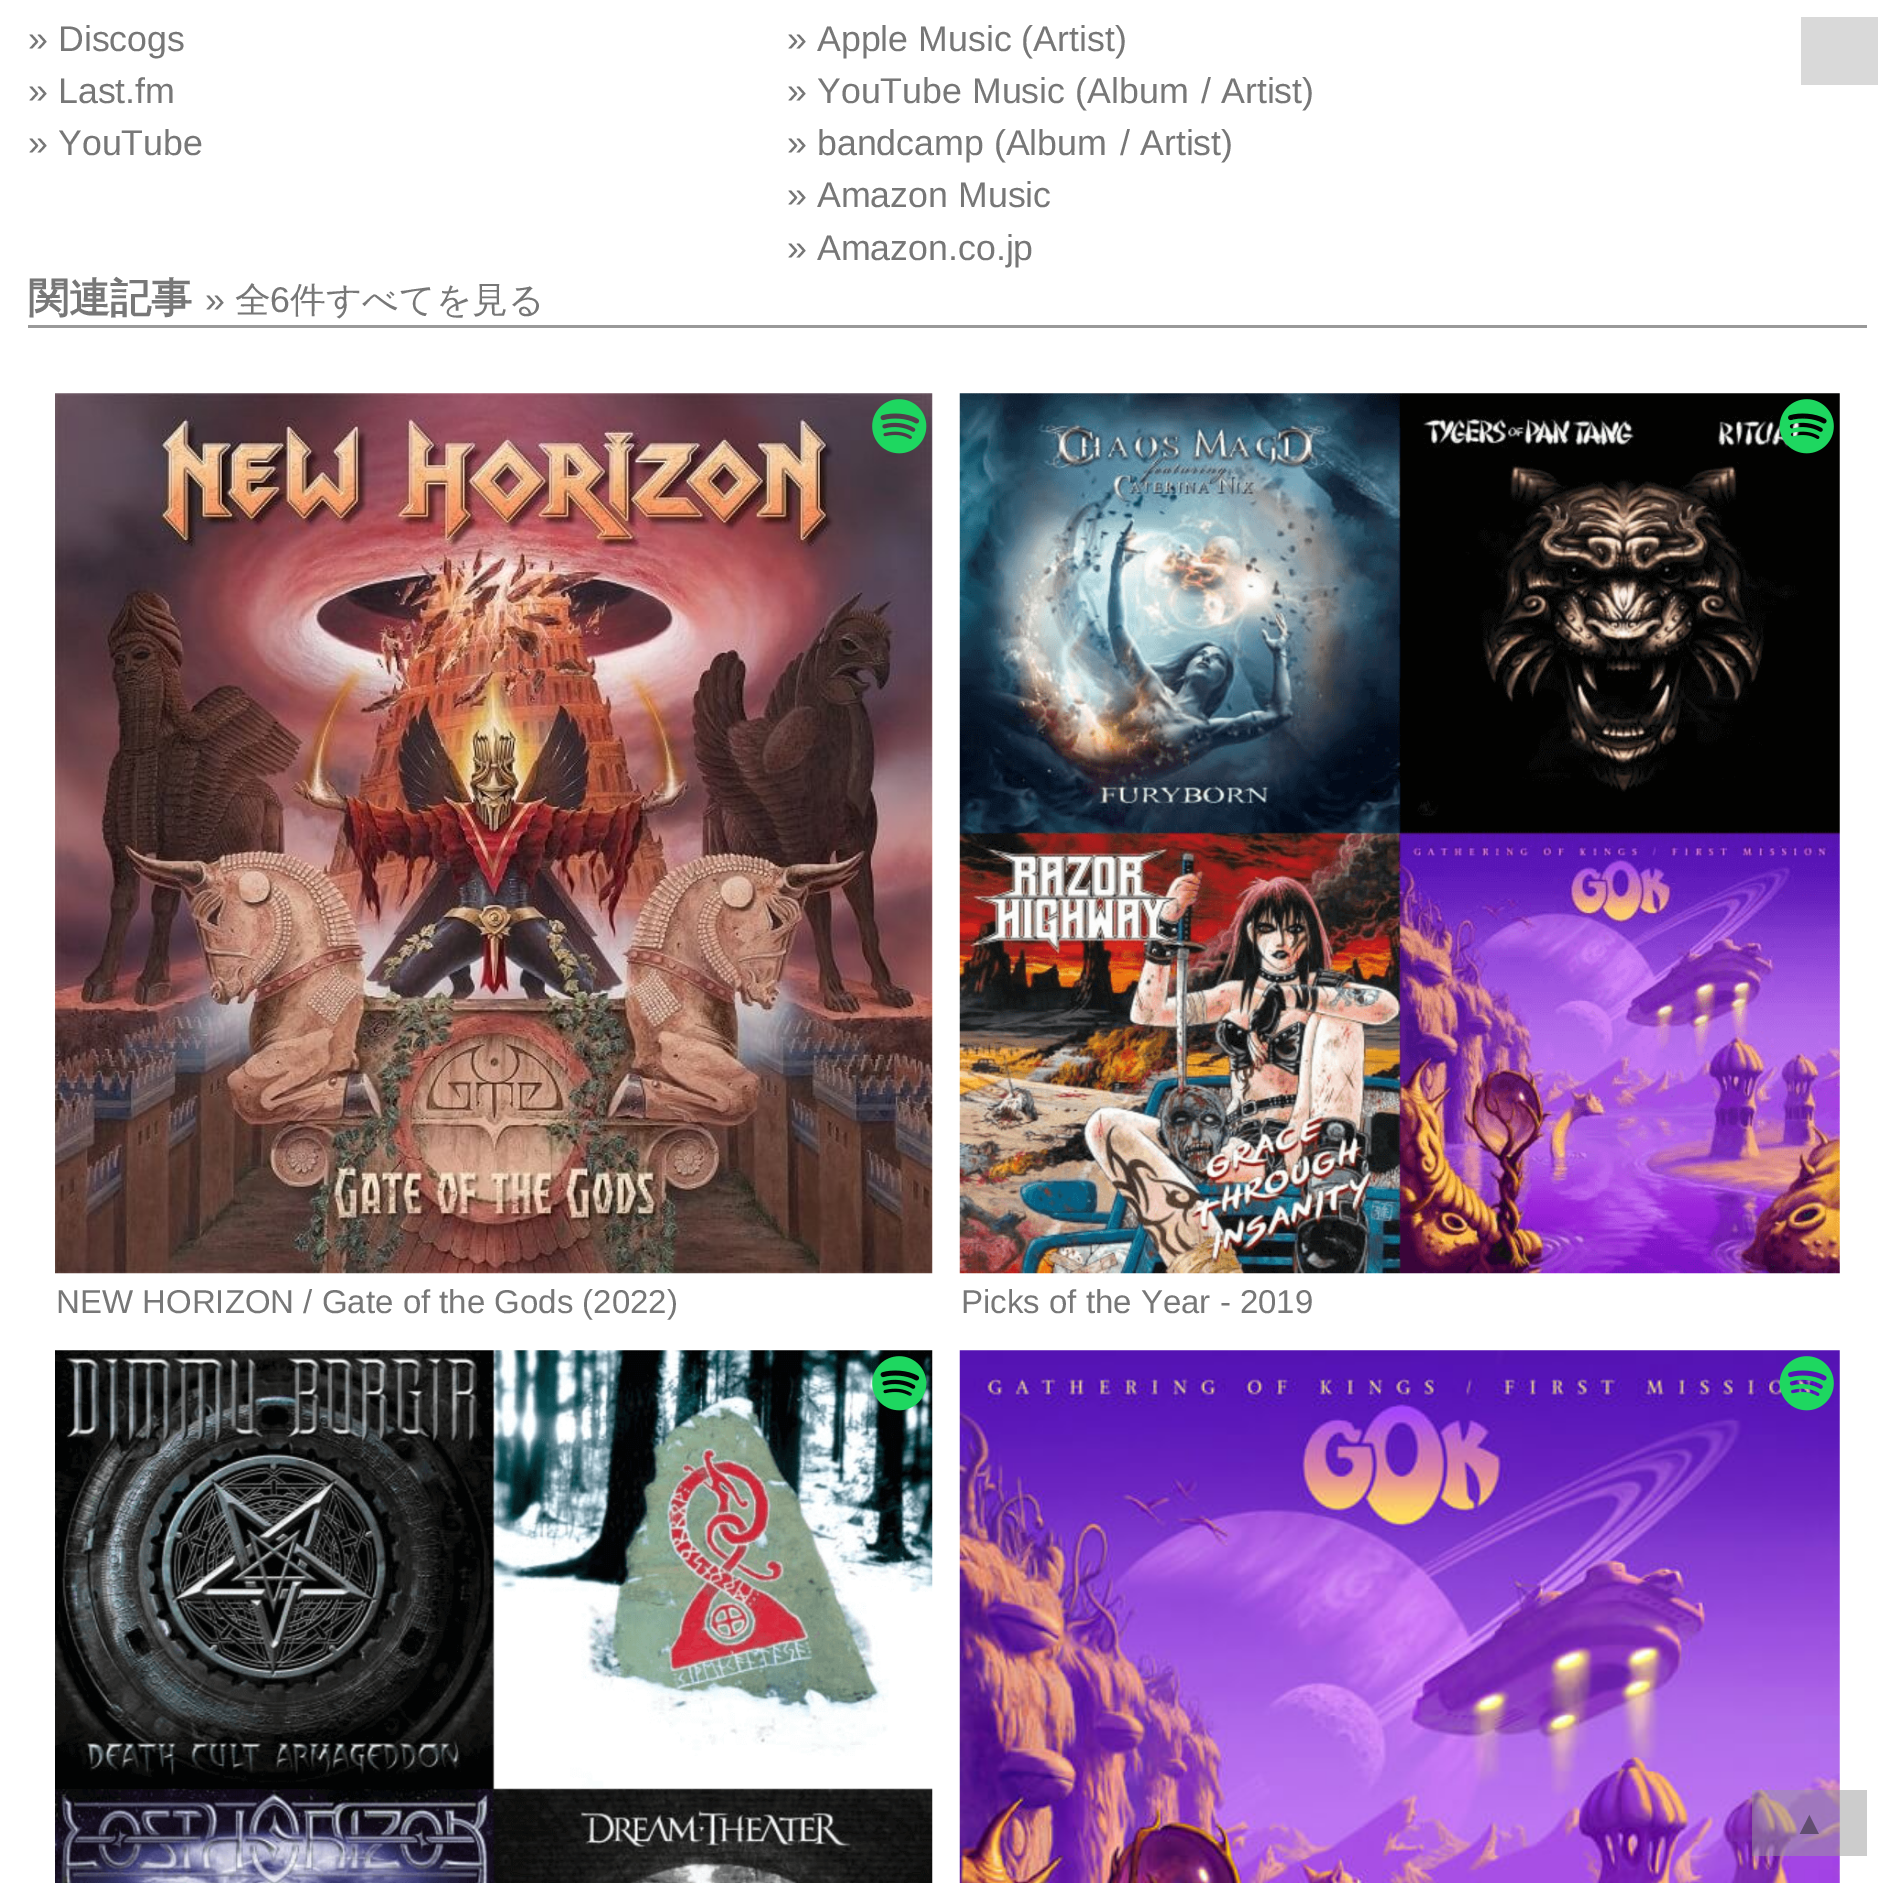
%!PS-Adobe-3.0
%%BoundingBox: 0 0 1893 1883
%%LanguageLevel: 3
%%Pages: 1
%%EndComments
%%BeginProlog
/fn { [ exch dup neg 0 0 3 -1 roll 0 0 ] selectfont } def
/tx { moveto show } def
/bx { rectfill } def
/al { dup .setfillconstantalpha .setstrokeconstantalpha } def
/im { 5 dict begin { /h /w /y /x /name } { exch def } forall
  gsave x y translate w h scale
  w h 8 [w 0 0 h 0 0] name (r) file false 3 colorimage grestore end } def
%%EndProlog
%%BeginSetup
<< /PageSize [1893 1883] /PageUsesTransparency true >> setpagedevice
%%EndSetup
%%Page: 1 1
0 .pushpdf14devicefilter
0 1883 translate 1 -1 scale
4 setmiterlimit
1 setgray
0 0 1893 1883 bx
/LiberationSans-Regular 35.75 fn
0.467 setgray
(» Discogs) 28 51 tx
(» Last.fm) 28 103 tx
(» YouTube) 28 155 tx
(» Apple Music \(Artist\)) 787 51 tx
(» YouTube Music \(Album) 787 103 tx
(/ Artist\)) 1201 103 tx
(» bandcamp \(Album) 787 155 tx
(/ Artist\)) 1120 155 tx
(» Amazon Music) 787 207 tx
(» Amazon.co.jp) 787 260 tx
0.6 setgray
28 325 1839 3 bx
/WenQuanYiZenHei-Bold 41 fn
0.467 setgray
(関連記事) 28 312 tx
/LiberationSans-Regular 35.75 fn
(») 205 312 tx
/WenQuanYiZenHei-Medium 35.75 fn
(全) 235 312 tx
/LiberationSans-Regular 35.75 fn
(6) 270 312 tx
/WenQuanYiZenHei-Medium 35.75 fn
(件すべてを見る) 290 312 tx
(image0.raw) 55 393 878 881 im
(image1.raw) 872 399 55 55 im
/LiberationSans-Regular 33 fn
(NEW HORIZON / Gate of the Gods \(2022\)) 56 1313 tx
(image2.raw) 959 393 881 881 im
(image3.raw) 1779 399 55 55 im
(Picks of the Year - 2019) 961 1313 tx
(image4.raw) 55 1350 878 533 im
(image5.raw) 872 1356 55 55 im
(image6.raw) 959 1350 881 533 im
(image7.raw) 1779 1356 55 55 im
0.851 setgray
1801 17 77 68 bx
0.5 al
0.6 setgray
1752 1790 115 66 bx
1 al
0.38 0.302 0.439 setrgbcolor
(▲) 1793 1834 tx
.poppdf14devicefilter showpage
%%EOF
